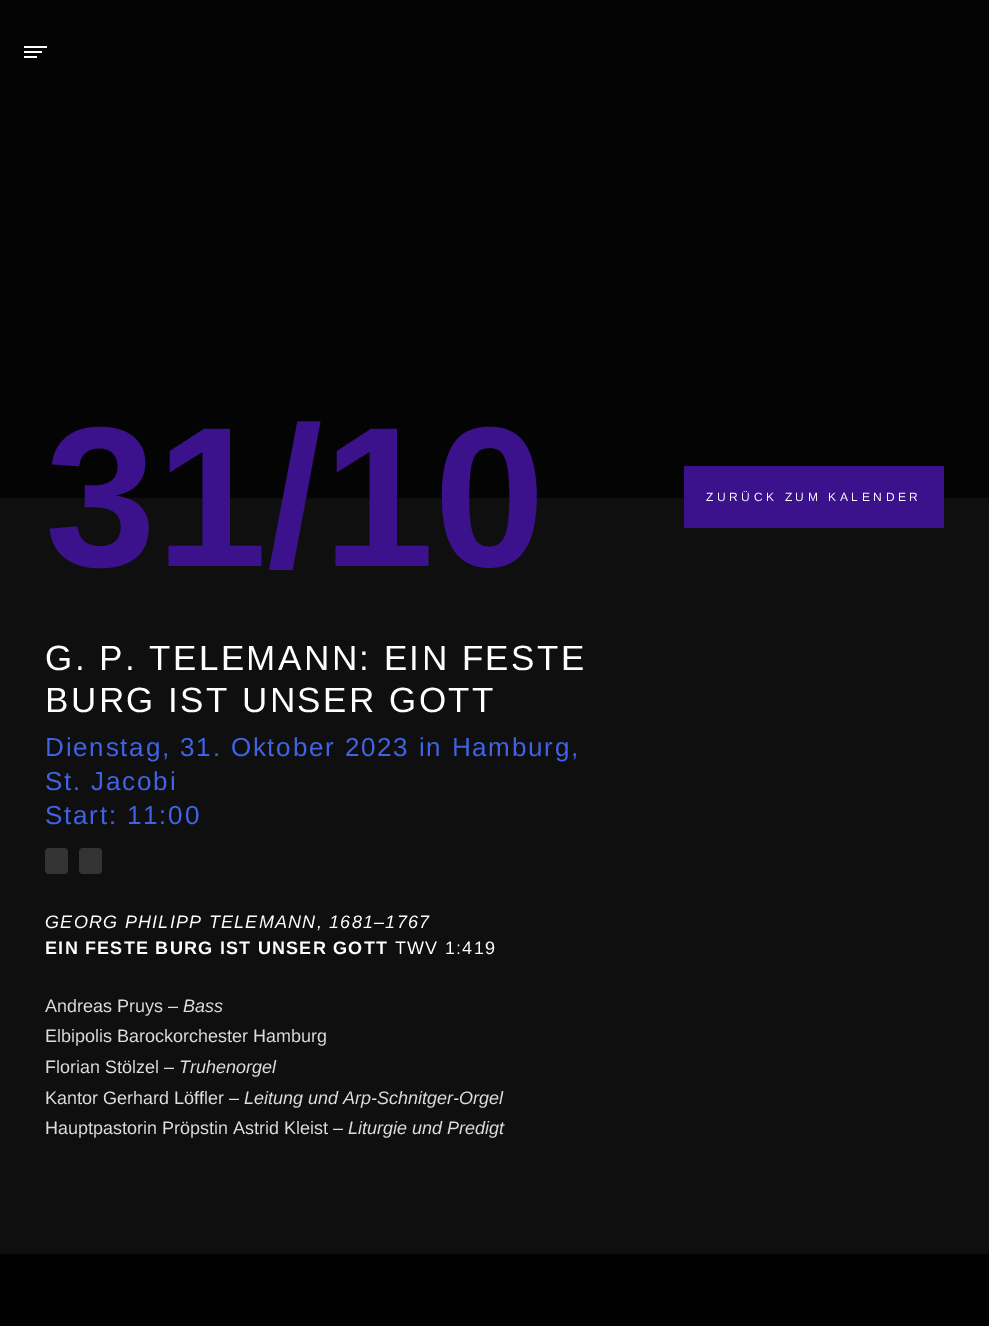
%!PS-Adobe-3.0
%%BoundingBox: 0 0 989 1326
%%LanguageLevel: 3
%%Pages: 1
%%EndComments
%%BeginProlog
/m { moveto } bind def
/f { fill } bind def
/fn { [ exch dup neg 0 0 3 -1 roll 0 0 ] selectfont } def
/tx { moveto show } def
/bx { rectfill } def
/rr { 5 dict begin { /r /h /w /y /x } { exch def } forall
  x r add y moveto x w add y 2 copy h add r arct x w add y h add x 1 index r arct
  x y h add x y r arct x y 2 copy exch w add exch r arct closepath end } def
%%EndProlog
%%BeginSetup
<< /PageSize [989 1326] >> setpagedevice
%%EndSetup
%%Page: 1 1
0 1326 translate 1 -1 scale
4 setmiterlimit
0.059 setgray
0 0 989 1326 bx
0.016 setgray
0 0 989 498 bx
1 setgray
24 51 18 2 bx
24 46 23 2 bx
24 56 13 2 bx
/LiberationSans-Bold 200 fn
0.235 0.071 0.549 setrgbcolor
(31/10) 45 566 tx
684 466 260 62 bx
/LiberationSans-Regular 12 fn
1 setgray
706 501 m 3.6 0 (ZURÜCK ZUM KALENDER) ashow
/LiberationSans-Regular 35 fn
45 670 m 2.45 0 (G. P. TELEMANN: EIN FESTE) ashow
45 712 m 2.45 0 (BURG IST UNSER GOTT) ashow
/LiberationSans-Regular 26 fn
0.251 0.388 0.902 setrgbcolor
45 756 m 1.8 0 (Dienstag, 31. Oktober 2023 in Hamburg,) ashow
45 790 m 1.8 0 (St. Jacobi) ashow
45 824 m 1.8 0 (Start: 11:00) ashow
0.2 setgray
45 848 23 26 4 rr f
79 848 23 26 4 rr f
/LiberationSans-Italic 18 fn
1 setgray
45 928 m 1.25 0 (GEORG PHILIPP TELEMANN, 1681–1767) ashow
/LiberationSans-Bold 18 fn
45 954 m 1.25 0 (EIN FESTE BURG IST UNSER GOTT) ashow
/LiberationSans-Regular 18 fn
395 954 m 1.25 0 (TWV 1:419) ashow
0.867 setgray
(Andreas Pruys –) 45 1012 tx
/LiberationSans-Italic 18 fn
(Bass) 183 1012 tx
/LiberationSans-Regular 18 fn
(Elbipolis Barockorchester Hamburg) 45 1042 tx
(Florian Stölzel –) 45 1073 tx
/LiberationSans-Italic 18 fn
(Truhenorgel) 179 1073 tx
/LiberationSans-Regular 18 fn
(Kantor Gerhard Löffler –) 45 1104 tx
/LiberationSans-Italic 18 fn
(Leitung und Arp-Schnitger-Orgel) 244 1104 tx
/LiberationSans-Regular 18 fn
(Hauptpastorin Pröpstin Astrid Kleist –) 45 1134 tx
/LiberationSans-Italic 18 fn
(Liturgie und Predigt) 348 1134 tx
0.004 setgray
0 1254 989 72 bx
showpage
%%EOF
